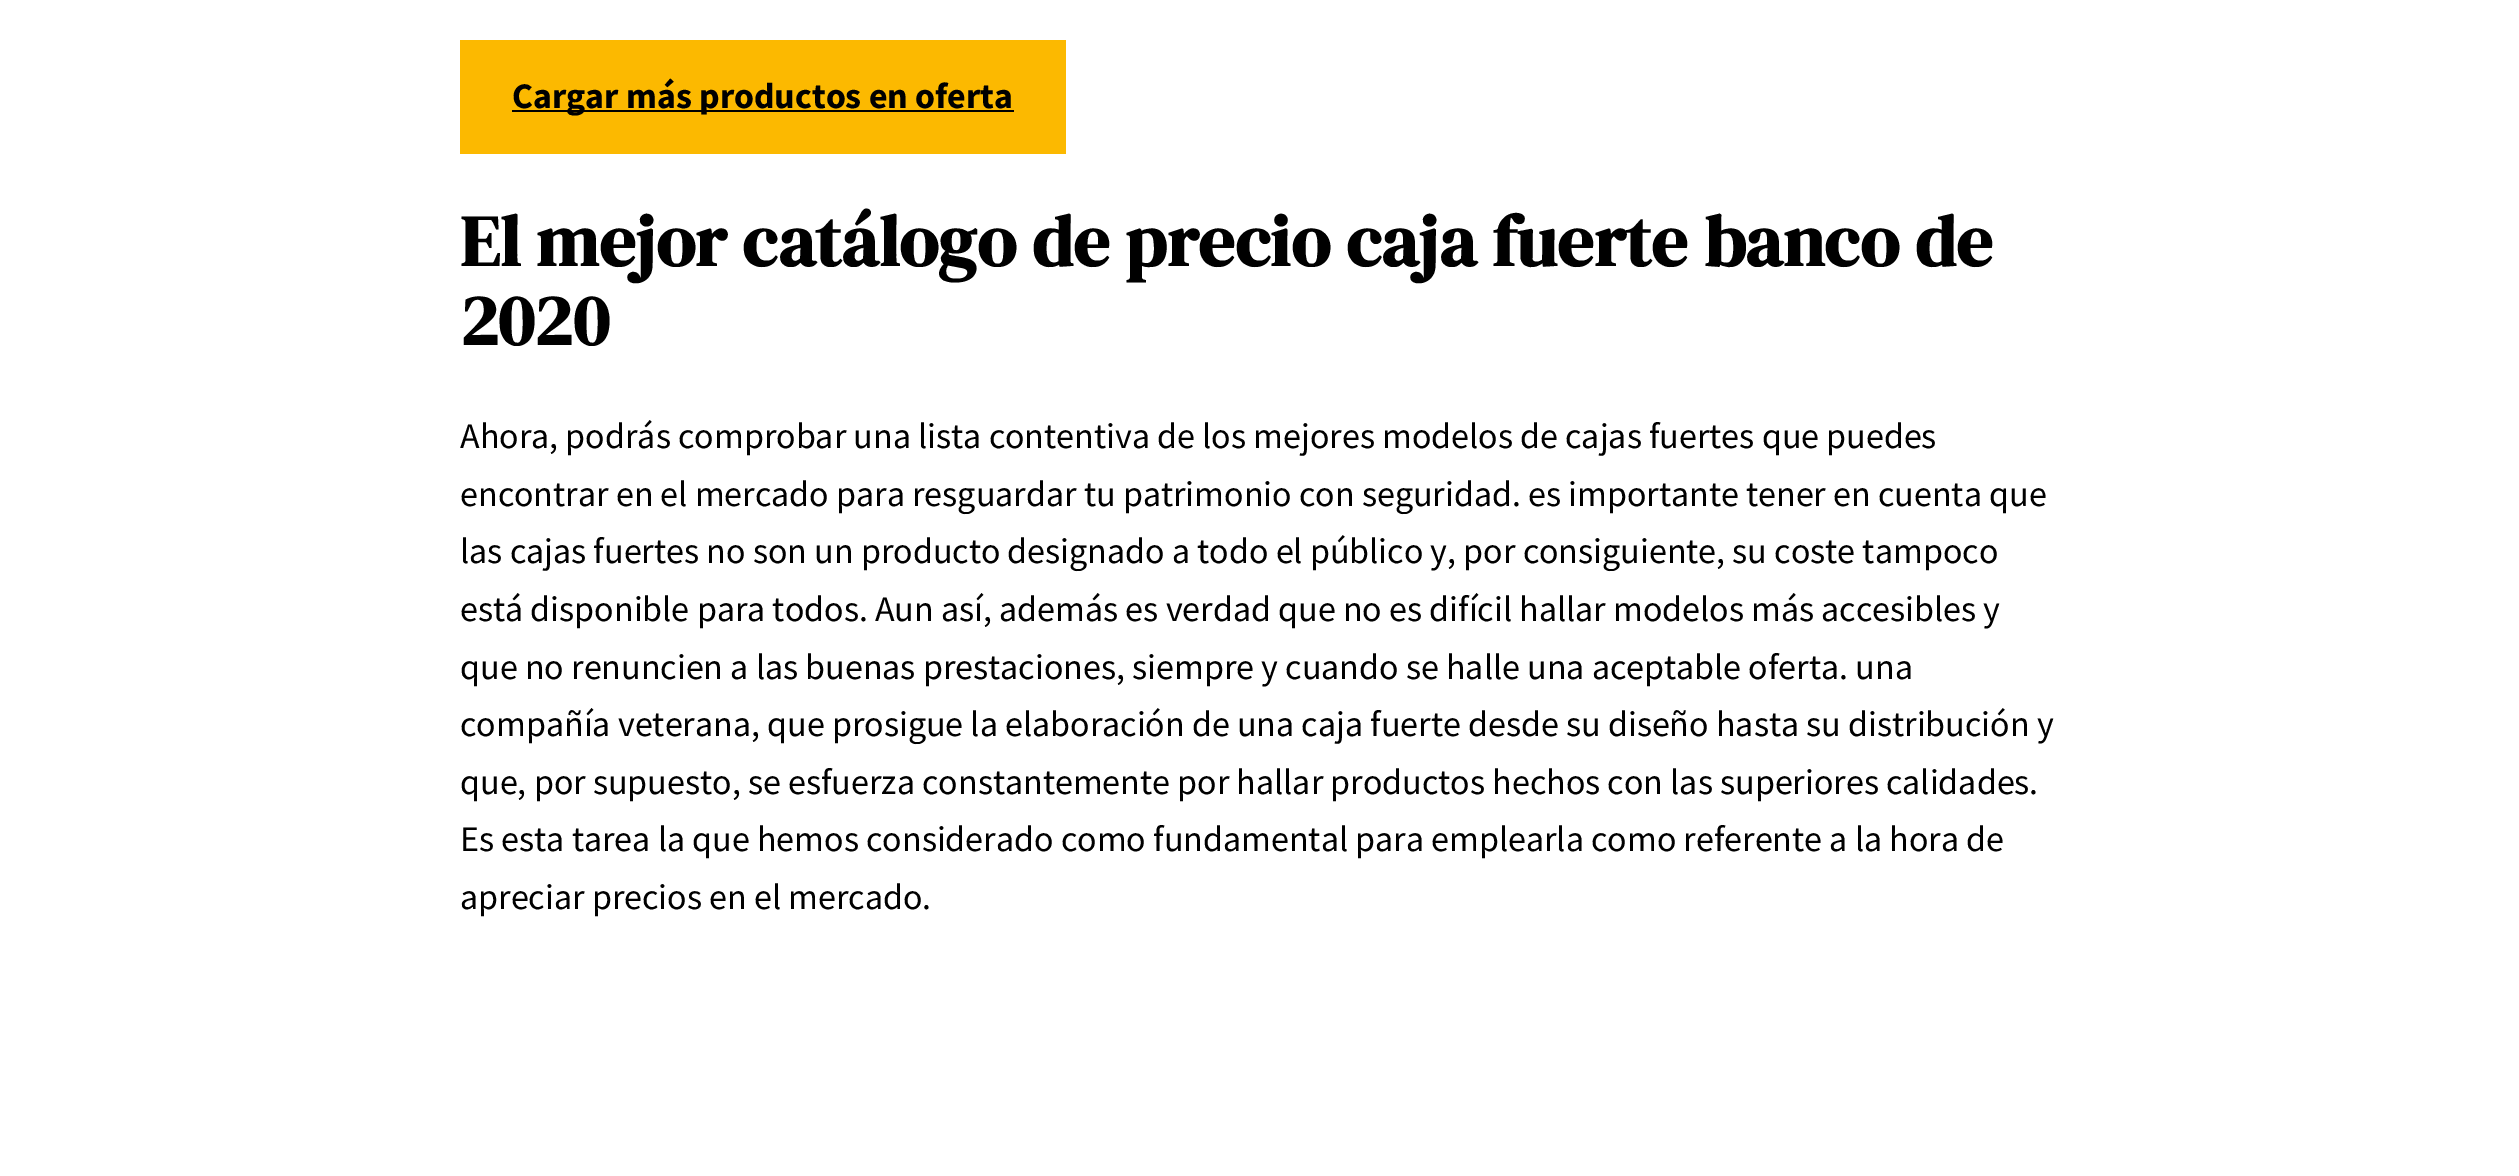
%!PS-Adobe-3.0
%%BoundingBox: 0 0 2519 1176
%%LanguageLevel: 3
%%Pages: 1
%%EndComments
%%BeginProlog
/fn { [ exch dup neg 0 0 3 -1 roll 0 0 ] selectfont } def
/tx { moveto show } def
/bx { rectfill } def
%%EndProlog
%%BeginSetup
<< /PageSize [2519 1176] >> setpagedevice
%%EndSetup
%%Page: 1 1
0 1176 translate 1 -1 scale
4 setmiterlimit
1 setgray
0 0 2519 1176 bx
0.988 0.725 0 setrgbcolor
460 40 606 114 bx
0 setgray
512 110 502 2 bx
/SourceSansPro-Bold 36 fn
(Cargar más productos en oferta) 512 108 tx
/DMSerifDisplay-Bold 72 fn
(El mejor catálogo de precio caja fuerte banco de) 460 266 tx
(2020) 460 345 tx
/SourceSansPro-Regular 36 fn
(Ahora, podrás comprobar una lista contentiva de los mejores modelos de cajas fuertes que puedes) 460 448 tx
(encontrar en el mercado para resguardar tu patrimonio con seguridad. es importante tener en cuenta que) 460 506 tx
(las cajas fuertes no son un producto designado a todo el público y, por consiguiente, su coste tampoco) 460 563 tx
(está disponible para todos. Aun así, además es verdad que no es difícil hallar modelos más accesibles y) 460 621 tx
(que no renuncien a las buenas prestaciones, siempre y cuando se halle una aceptable oferta. una) 460 679 tx
(compañía veterana, que prosigue la elaboración de una caja fuerte desde su diseño hasta su distribución y) 460 736 tx
(que, por supuesto, se esfuerza constantemente por hallar productos hechos con las superiores calidades.) 460 794 tx
(Es esta tarea la que hemos considerado como fundamental para emplearla como referente a la hora de) 460 851 tx
(apreciar precios en el mercado.) 460 909 tx
showpage
%%EOF
